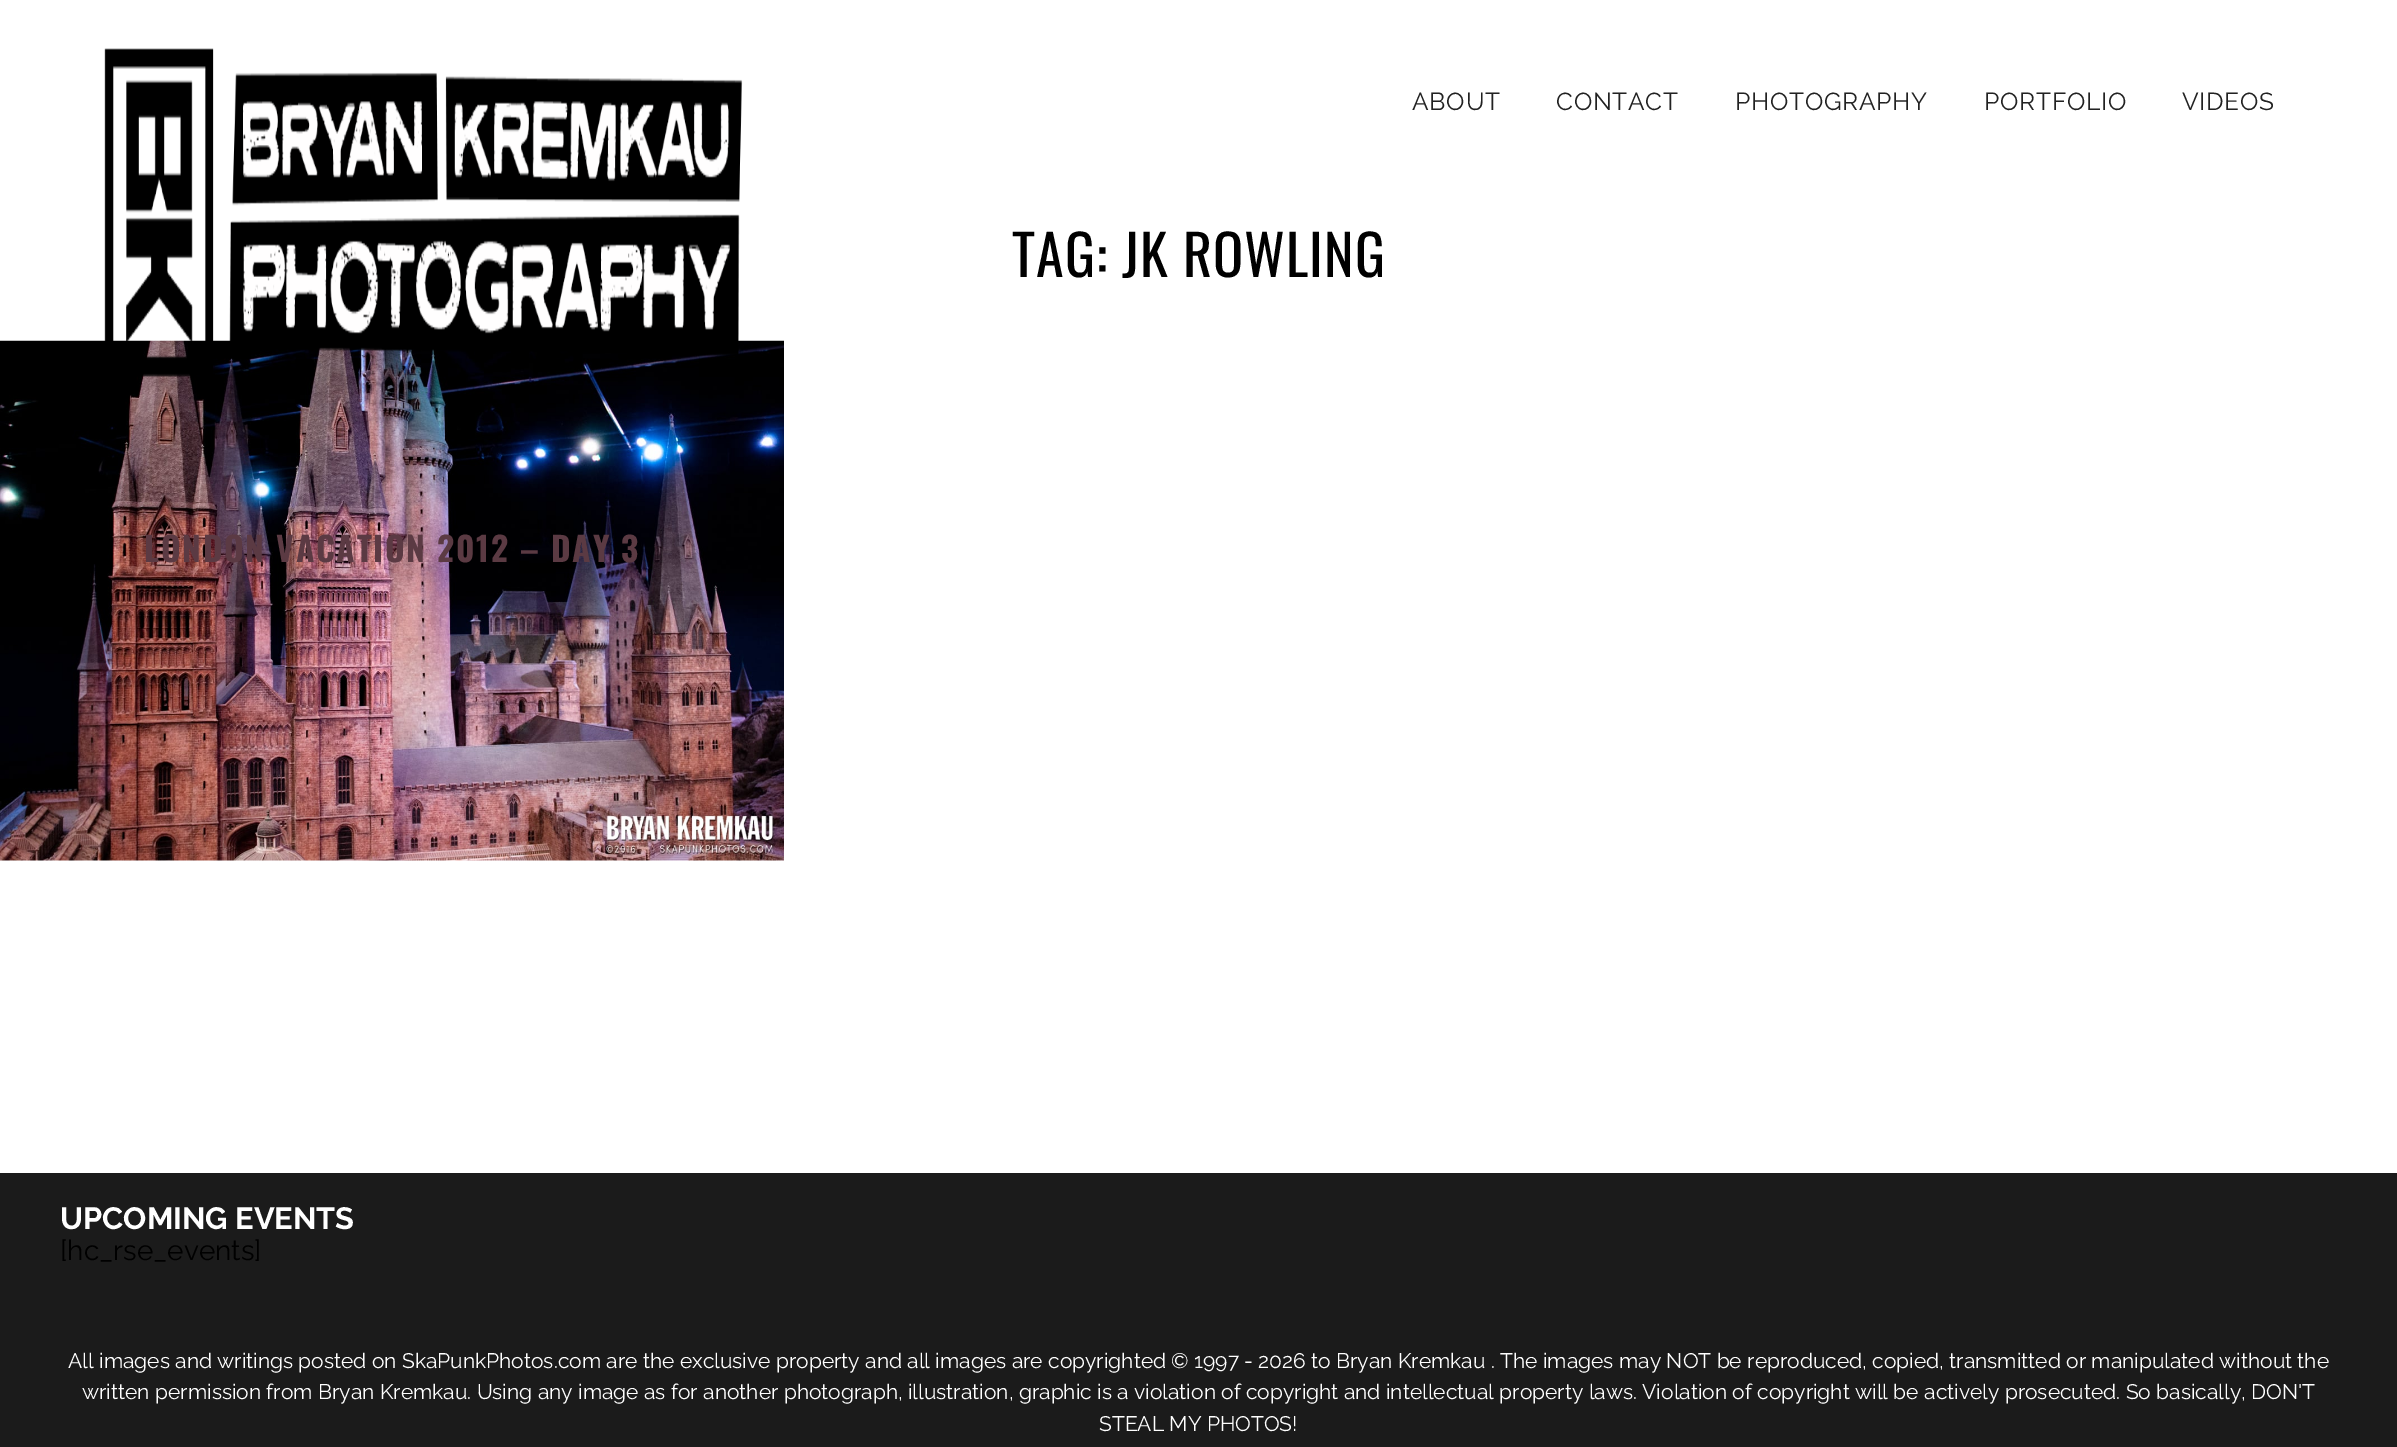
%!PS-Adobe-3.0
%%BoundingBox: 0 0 2397 1447
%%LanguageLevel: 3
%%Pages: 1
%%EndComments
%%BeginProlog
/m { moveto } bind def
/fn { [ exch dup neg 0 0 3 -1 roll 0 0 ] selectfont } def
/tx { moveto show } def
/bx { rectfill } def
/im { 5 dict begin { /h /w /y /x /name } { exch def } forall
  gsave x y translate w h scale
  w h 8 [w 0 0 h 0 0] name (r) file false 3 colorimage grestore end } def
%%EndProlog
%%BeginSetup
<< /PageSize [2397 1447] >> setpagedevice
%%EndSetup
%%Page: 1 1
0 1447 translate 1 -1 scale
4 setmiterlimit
1 setgray
0 0 2397 1447 bx
(image1.raw) 0 340 784 521 im
(image0.raw) 104 48 639 329 im
/Raleway-Regular 24.5 fn
0.133 setgray
1412 110 m 0.75 0 (ABOUT) ashow
1556 110 m 0.75 0 (CONTACT) ashow
1735 110 m 0.75 0 (PHOTOGRAPHY) ashow
1984 110 m 0.75 0 (PORTFOLIO) ashow
2182 110 m 0.75 0 (VIDEOS) ashow
/Oswald-Regular 56 fn
0 setgray
1012 277 m 1.1 0 (TAG: JK ROWLING) ashow
/Oswald-Bold 33.6 fn
0.357 0.227 0.263 setrgbcolor
144 562 m 1.7 0 (LONDON VACATION 2012 – DAY 3) ashow
0.106 setgray
0 1173 2397 274 bx
/Raleway-Bold 30.75 fn
1 setgray
(UPCOMING EVENTS) 60 1229 tx
/Raleway-Regular 28 fn
0 setgray
([hc_rse_events]) 60 1260 tx
/Raleway-Regular 21 fn
1 setgray
(All images and writings posted on SkaPunkPhotos.com are the exclusive property and all images are copyrighted © 1997 - 2026 to Bryan Kremkau . The images may NOT be reproduced, copied, transmitted or manipulated without the) 68 1368 tx
(written permission from Bryan Kremkau. Using any image as for another photograph, illustration, graphic is a violation of copyright and intellectual property laws. Violation of copyright will be actively prosecuted. So basically, DON'T) 82 1399 tx
(STEAL MY PHOTOS!) 1099 1431 tx
showpage
%%EOF
